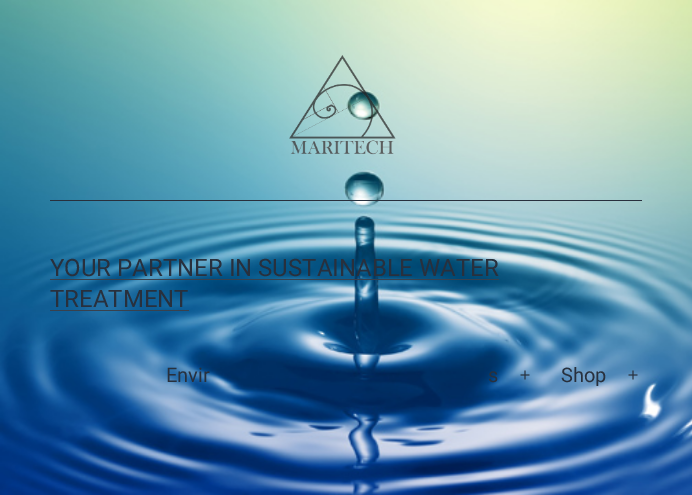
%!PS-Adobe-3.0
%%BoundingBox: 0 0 692 495
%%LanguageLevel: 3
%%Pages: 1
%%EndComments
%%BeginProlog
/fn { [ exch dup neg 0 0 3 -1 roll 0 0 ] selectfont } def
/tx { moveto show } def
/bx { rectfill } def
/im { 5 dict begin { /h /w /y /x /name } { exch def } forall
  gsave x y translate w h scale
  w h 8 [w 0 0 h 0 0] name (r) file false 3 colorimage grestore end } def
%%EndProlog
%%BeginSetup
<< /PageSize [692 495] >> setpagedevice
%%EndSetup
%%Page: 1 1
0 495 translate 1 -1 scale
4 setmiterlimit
1 setgray
0 0 692 495 bx
(image0.raw) 0 0 692 495 im
0.157 0.188 0.239 setrgbcolor
50 200 592 1 bx
(image1.raw) 289 55 107 100 im
/Roboto-Regular 24 fn
(YOUR PARTNER IN SUSTAINABLE WATER) 50 276 tx
0.224 0.255 0.302 setrgbcolor
50 279 449 1 bx
0.157 0.188 0.239 setrgbcolor
(TREATMENT) 50 307 tx
0.224 0.255 0.302 setrgbcolor
50 310 139 1 bx
/Roboto-Regular 20 fn
0.157 0.188 0.239 setrgbcolor
(Envir) 166 382 tx
(s) 488 382 tx
(image2.raw) 520 370 10 10 im
(Shop) 561 382 tx
(image3.raw) 628 370 10 10 im
showpage
%%EOF
